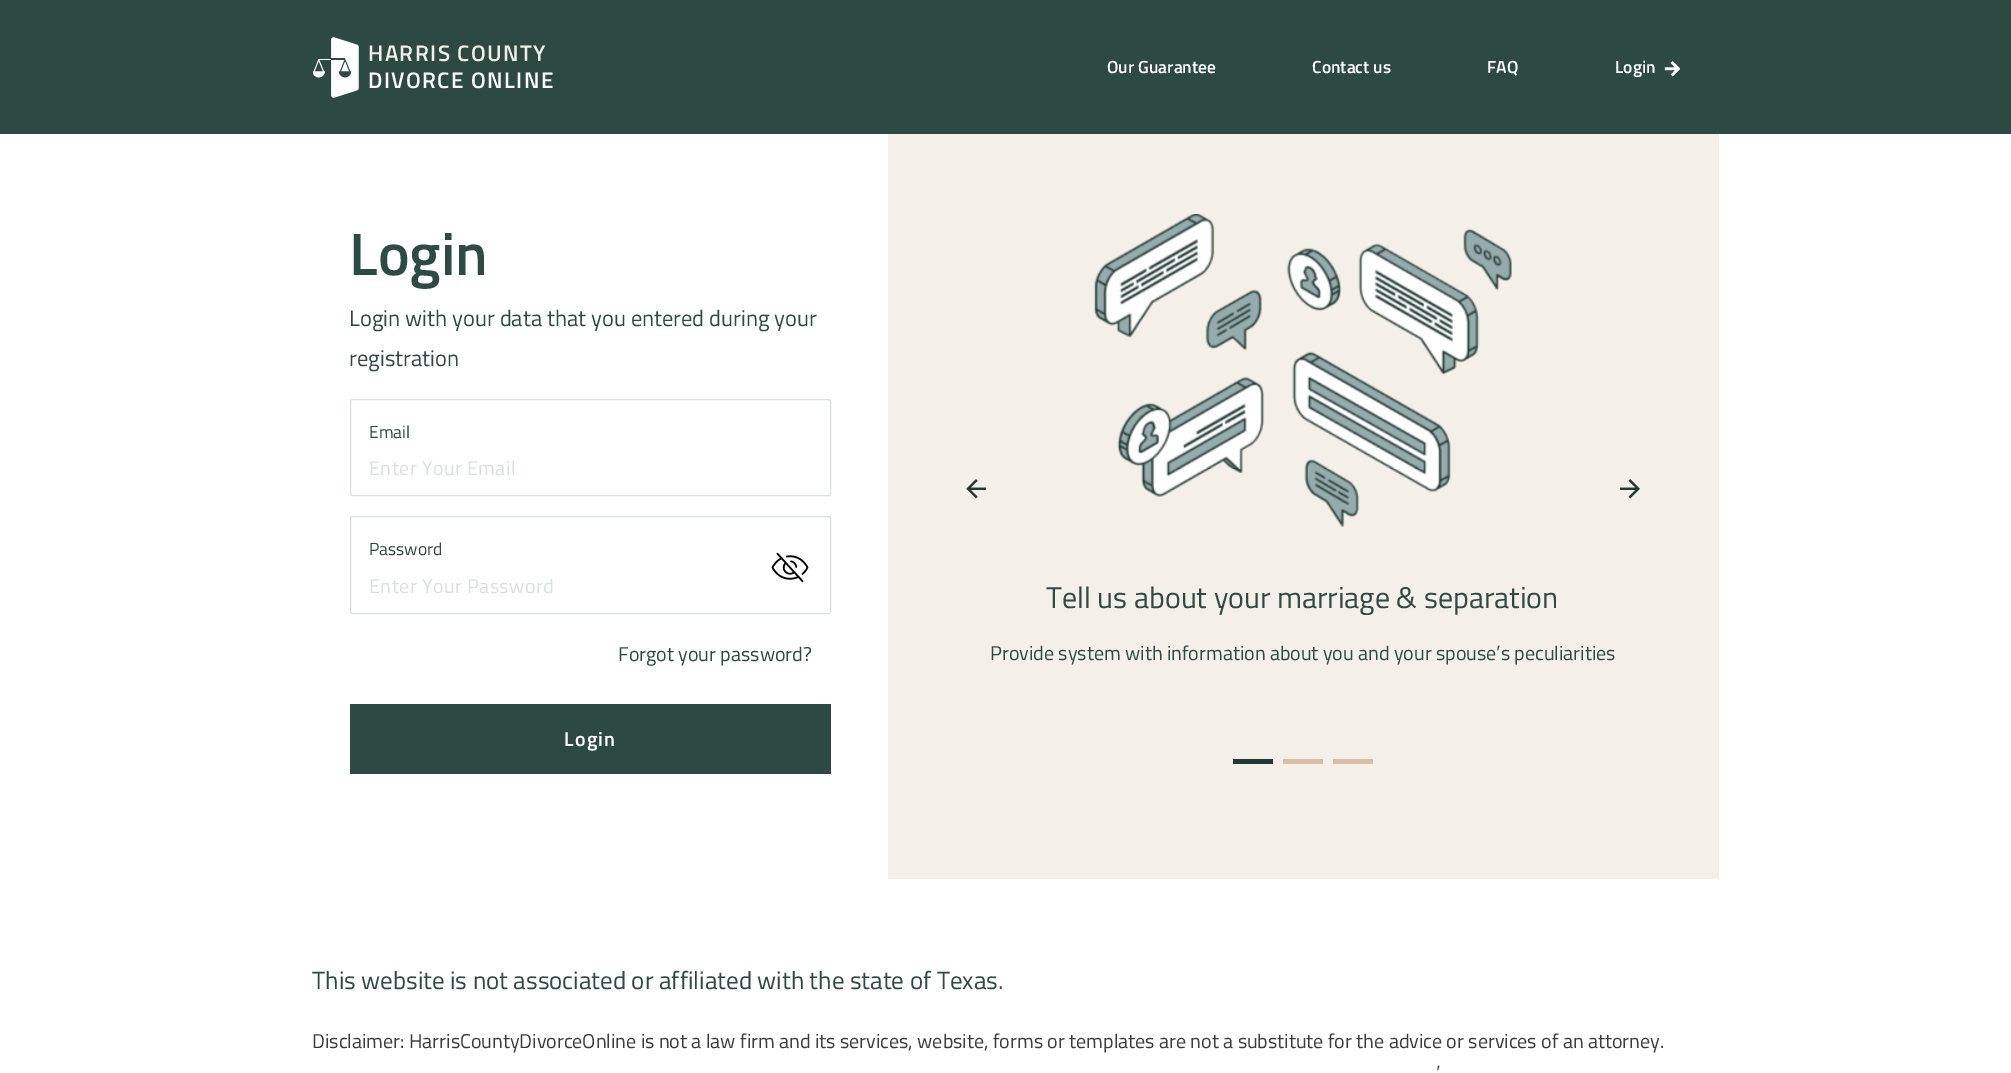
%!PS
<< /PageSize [2011 1073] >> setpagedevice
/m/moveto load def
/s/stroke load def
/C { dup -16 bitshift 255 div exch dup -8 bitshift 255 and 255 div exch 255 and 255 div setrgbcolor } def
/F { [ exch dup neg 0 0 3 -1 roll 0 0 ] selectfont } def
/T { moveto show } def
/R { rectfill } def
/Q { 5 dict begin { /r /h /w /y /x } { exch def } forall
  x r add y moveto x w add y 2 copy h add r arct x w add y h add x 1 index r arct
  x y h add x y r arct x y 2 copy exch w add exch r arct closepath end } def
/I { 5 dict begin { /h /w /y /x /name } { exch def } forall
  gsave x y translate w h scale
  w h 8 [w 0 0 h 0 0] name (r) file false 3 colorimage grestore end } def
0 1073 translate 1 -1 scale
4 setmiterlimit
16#FFFFFF C
0 0 2011 1073 R
16#2D4A42 C
0 0 2011 134 R
(1.rgb) 313 37 46 61 I
/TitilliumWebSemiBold-SemiBold 22.5 F
16#F5EFEA C
368 61 m 1.4 0 (HARRIS COUNTY) ashow
16#FFFFFF C
368 88 m 1.4 0 (DIVORCE ONLINE) ashow
/TitilliumWebSemiBold-SemiBold 17.5 F
(Our Guarantee) 1107 73 T
(Contact us) 1312 73 T
(FAQ) 1487 73 T
(Login) 1615 73 T
(2.rgb) 1664 61 16 16 I
/TitilliumWebSemiBold-SemiBold 60 F
16#2E4B43 C
(Login) 349 275 T
/TitilliumWeb-Regular 22.5 F
(Login with your data that you entered during your) 349 326 T
(registration) 349 366 T
16#D9E1E0 C
350.5 399.5 480 96 2 Q s
/TitilliumWeb-Regular 17.5 F
16#2E4B43 C
(Email) 369 438 T
/TitilliumWeb-Regular 20 F
16#D9E1E0 C
369 475 m .4 0 (Enter Your Email) ashow
350.5 516.5 480 97 2 Q s
/TitilliumWeb-Regular 17.5 F
16#2E4B43 C
(Password) 369 555 T
(3.rgb) 771 552 38 31 I
/TitilliumWeb-Regular 20 F
16#D9E1E0 C
369 593 m .4 0 (Enter Your Password) ashow
16#2E4B43 C
(Forgot your password?) 618 661 T
16#2D4A42 C
350 704 481 70 R
/TitilliumWebSemiBold-SemiBold 20 F
16#FFFFFF C
564 746 m 1.25 0 (Login) ashow
16#F5EFEA C
888 134 831 745 R
(4.rgb) 966 479 20 20 I
(5.rgb) 1620 479 20 20 I
(6.rgb) 1094 214 418 313 I
/TitilliumWeb-Regular 30 F
16#2E4B43 C
(Tell us about your marriage & separation) 1046 608 T
/TitilliumWeb-Regular 20 F
(Provide system with information about you and your spouse’s peculiarities) 990 660 T
16#223933 C
1233 759 40 5 R
16#DABDA5 C
1283 759 40 5 R
1333 759 40 5 R
/TitilliumWeb-Regular 25 F
16#2E4B43 C
(This website is not associated or affiliated with the state of Texas.) 312 989 T
/TitilliumWeb-Regular 20 F
16#3C3C3C C
(Disclaimer: HarrisCountyDivorceOnline is not a law firm and its services, website, forms or templates are not a substitute for the advice or services of an attorney.) 312 1048 T
(’) 1436 1080 T
showpage
